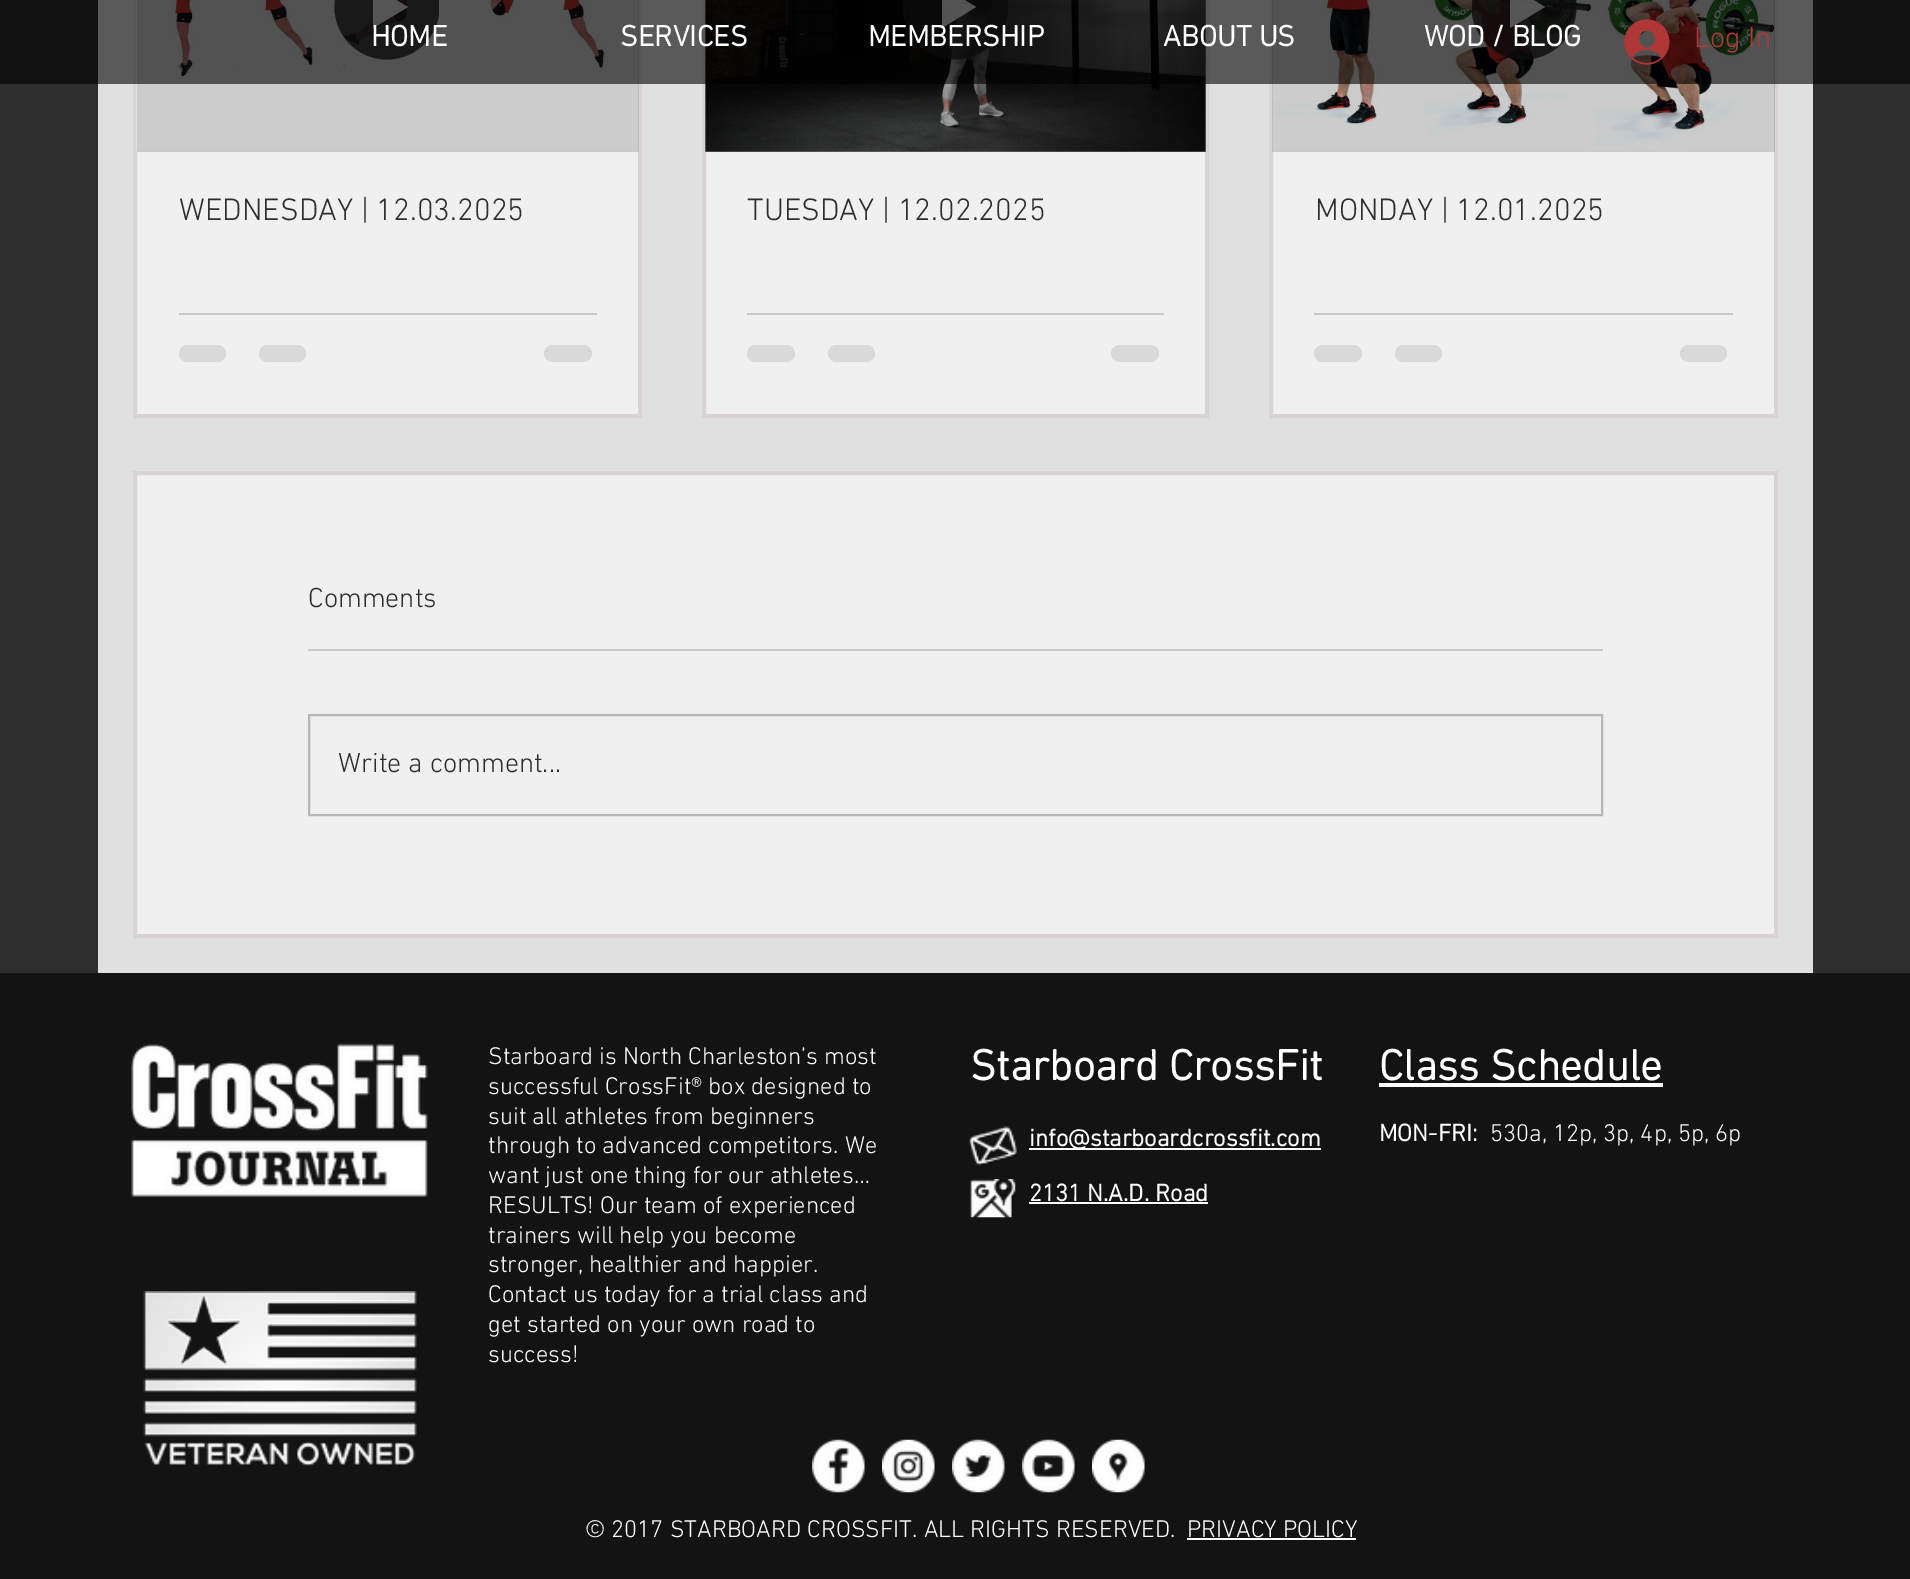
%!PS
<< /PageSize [1910 1579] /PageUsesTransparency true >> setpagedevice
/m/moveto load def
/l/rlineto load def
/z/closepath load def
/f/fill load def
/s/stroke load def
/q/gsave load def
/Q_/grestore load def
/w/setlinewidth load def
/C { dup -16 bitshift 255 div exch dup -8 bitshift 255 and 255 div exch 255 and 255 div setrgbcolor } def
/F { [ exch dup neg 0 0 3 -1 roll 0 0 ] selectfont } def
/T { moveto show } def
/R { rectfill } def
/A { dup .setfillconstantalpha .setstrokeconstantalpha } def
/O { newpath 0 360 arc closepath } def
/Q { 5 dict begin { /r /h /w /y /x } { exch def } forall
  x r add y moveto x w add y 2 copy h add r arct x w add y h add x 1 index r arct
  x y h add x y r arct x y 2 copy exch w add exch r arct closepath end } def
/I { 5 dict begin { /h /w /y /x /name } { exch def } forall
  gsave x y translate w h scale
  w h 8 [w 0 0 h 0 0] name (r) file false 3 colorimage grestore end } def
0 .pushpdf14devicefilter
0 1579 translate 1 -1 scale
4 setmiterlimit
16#2F2E2E C
0 0 1910 1579 R
16#E0E0E0 C
98 0 1715 973 R
16#F0F0F0 C
137 151 501 263 R
16#D9D4D3 C
4 w
135 -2 505 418 rectstroke
(2.rgb) 136 0 503 152 I
0.2 A
16#000000 C
137 0 502 152 R
q
334 0 105 60 rectclip
0.8 A
16#1A1A1A C
387 7 52.5 O f
Q_
0.8 A
16#FFFFFF C
373 -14 m 0 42 l 35 -21 l z f
1 A
16#F0F0F0 C
706 151 499 263 R
16#D9D4D3 C
704 -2 503 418 rectstroke
(3.rgb) 705 0 501 152 I
0.2 A
16#000000 C
705 0 501 152 R
0.8 A
16#1A1A1A C
955.5 7 52.5 O f
16#FFFFFF C
942 -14 m 0 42 l 34 -21 l z f
1 A
16#F0F0F0 C
1273 151 501 263 R
16#D9D4D3 C
1271 -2 505 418 rectstroke
(4.rgb) 1272 0 503 152 I
0.2 A
16#000000 C
1272 0 503 152 R
q
1472 0 105 60 rectclip
0.8 A
16#1A1A1A C
1524 7 52.5 O f
Q_
0.8 A
16#FFFFFF C
1510 -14 m 0 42 l 35 -21 l z f
0.6 A
16#000000 C
0 0 1910 84 R
/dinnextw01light-Bold 29.75 F
1 A
16#FFFFFF C
(HOME) 371 46 T
(SERVICES) 620 46 T
(MEMBERSHIP) 868 46 T
(ABOUT US) 1163 46 T
(WOD / BLOG) 1424 46 T
(1.rgb) 1624 19 46 46 I
/dinnextw01light-Light 29.75 F
16#B03737 C
(Log In) 1694 47 T
/dinnextw01light-Light 31.5 F
16#2F2E2E C
(WEDNESDAY | 12.03.2025) 179 220 T
16#C9C9C9 C
179 313 418 2 R
16#D9D9D9 C
179 345 47 17 8.5 Q f
259 345 47 17 8.5 Q f
544 345 48 17 8.5 Q f
16#2F2E2E C
(TUESDAY | 12.02.2025) 747 220 T
16#C9C9C9 C
747 313 417 2 R
16#D9D9D9 C
747 345 48 17 8.5 Q f
828 345 47 17 8.5 Q f
1111 345 48 17 8.5 Q f
16#2F2E2E C
(MONDAY | 12.01.2025) 1315 220 T
16#C9C9C9 C
1314 313 419 2 R
16#D9D9D9 C
1314 345 48 17 8.5 Q f
1395 345 47 17 8.5 Q f
1680 345 47 17 8.5 Q f
16#F0F0F0 C
135 473 m 1641 0 l 0 463 l -1641 0 l z q f Q_
16#D9D4D3 C
s
/dinnextw01light-Light 28 F
16#2F2E2E C
(Comments) 308 607 T
16#C9C9C9 C
308 649 1295 2 R
16#B6B6B6 C
2 w
309 715 1293 100 rectstroke
16#2F2E2E C
(Write a comment...) 338 772 T
16#131313 C
0 973 1910 606 R
(5.rgb) 131 1043 297 154 I
/dinnextw01light-Light 24.5 F
16#FFFFFF C
(Starboard is North Charleston’s most) 488 1064 T
(successful CrossFit® box designed to) 488 1094 T
(suit all athletes from beginners) 488 1124 T
(through to advanced competitors. We) 488 1153 T
(want just one thing for our athletes…) 488 1183 T
(RESULTS! Our team of experienced) 488 1213 T
(trainers will help you become) 488 1243 T
(stronger, healthier and happier.) 488 1272 T
(Contact us today for a trial class and) 488 1302 T
(get started on your own road to) 488 1332 T
(success!) 488 1362 T
/dinnextw01light-Bold 43.75 F
(Starboard CrossFit) 970 1080 T
(Class Schedule) 1379 1080 T
1379 1083 284 4 R
/dinnextw01light-Bold 24.5 F
(MON-FRI:) 1379 1141 T
/dinnextw01light-Light 24.5 F
(530a, 12p, 3p, 4p, 5p, 6p) 1490 1141 T
(6.rgb) 969 1126 48 40 I
1029 1148 292 2 R
/dinnextw01light-Bold 24.5 F
(info@starboardcrossfit.com) 1029 1146 T
(7.rgb) 969 1179 48 39 I
(2131 N.A.D. Road) 1029 1201 T
1029 1202 179 2 R
(8.rgb) 143 1291 274 175 I
(9.rgb) 812 1439 53 54 I
(10.rgb) 882 1439 53 54 I
(11.rgb) 952 1439 53 54 I
(12.rgb) 1022 1439 53 54 I
(13.rgb) 1092 1439 53 54 I
/dinnextw01light-Light 24.5 F
(© 2017 STARBOARD CROSSFIT. ALL RIGHTS RESERVED.) 585 1537 T
(PRIVACY POLICY) 1187 1537 T
1187 1538 169 2 R
.poppdf14devicefilter showpage
